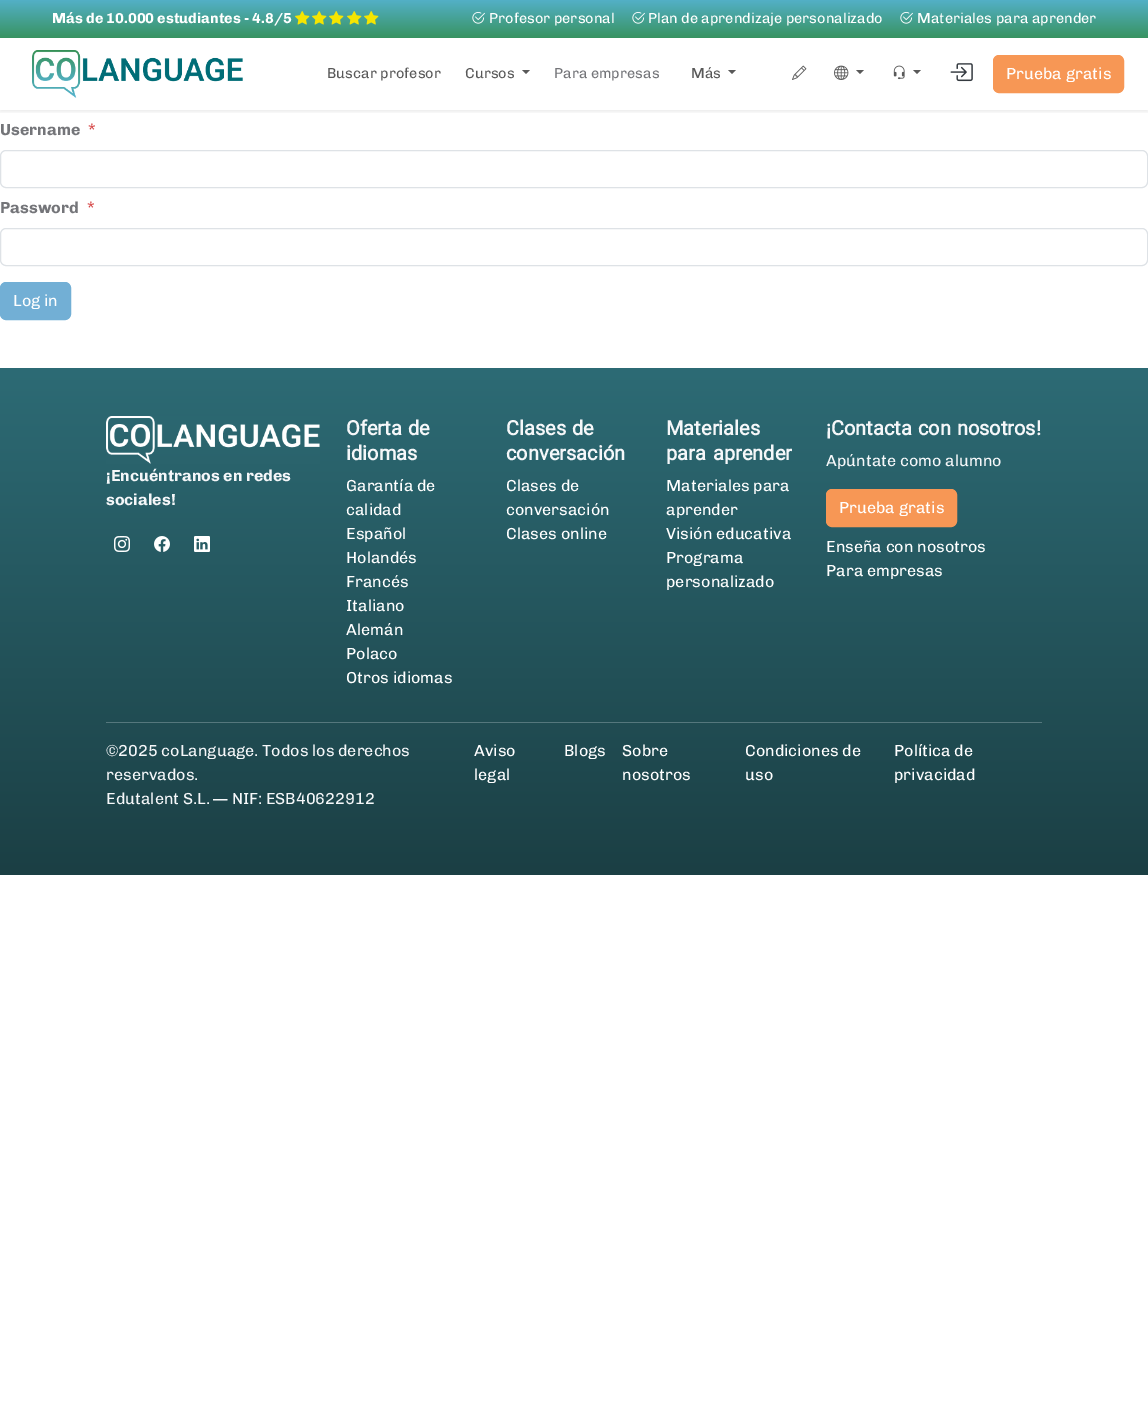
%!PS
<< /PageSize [1148 1414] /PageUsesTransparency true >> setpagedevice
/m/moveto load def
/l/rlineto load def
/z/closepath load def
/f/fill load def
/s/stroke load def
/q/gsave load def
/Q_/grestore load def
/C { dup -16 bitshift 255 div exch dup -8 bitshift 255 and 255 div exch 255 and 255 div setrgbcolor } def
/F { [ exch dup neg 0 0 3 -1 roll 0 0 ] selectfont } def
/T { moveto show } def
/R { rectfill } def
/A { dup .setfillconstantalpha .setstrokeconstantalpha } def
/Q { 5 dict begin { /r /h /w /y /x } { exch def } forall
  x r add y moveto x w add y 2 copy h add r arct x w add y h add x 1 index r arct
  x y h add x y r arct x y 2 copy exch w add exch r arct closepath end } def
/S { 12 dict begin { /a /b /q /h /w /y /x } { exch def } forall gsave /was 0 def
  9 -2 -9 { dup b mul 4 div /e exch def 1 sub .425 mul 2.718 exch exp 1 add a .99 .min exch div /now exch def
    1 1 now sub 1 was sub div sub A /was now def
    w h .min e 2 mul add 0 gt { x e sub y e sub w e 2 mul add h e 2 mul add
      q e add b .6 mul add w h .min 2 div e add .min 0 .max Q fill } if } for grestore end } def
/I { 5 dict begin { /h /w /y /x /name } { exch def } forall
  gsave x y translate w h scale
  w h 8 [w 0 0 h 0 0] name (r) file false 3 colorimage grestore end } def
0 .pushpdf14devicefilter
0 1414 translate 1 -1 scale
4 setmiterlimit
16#FFFFFF C
0 0 1148 1414 R
q 0 0 m 1148 0 l 0 38 l -1148 0 l z clip newpath
<< /ShadingType 2 /ColorSpace /DeviceRGB /Coords [574 0 574 38] /Extend [true true] /Function << /FunctionType 2 /Domain [0 1] /C0 [.325 .69 .78] /C1 [.22 .576 .38] /N 1 >> >> shfill Q_
/Chivo-Bold 14.4 F
(Más de 10.000 estudiantes - 4.8/5) 52 23 T
(1.rgb) 295 11 15 14 I
(1.rgb) 312 11 15 14 I
(1.rgb) 329 11 15 14 I
(1.rgb) 347 11 15 14 I
(1.rgb) 364 11 15 14 I
(2.rgb) 472 12 13 12 I
/Chivo-Regular 14.4 F
(Profesor personal) 489 23 T
(2.rgb) 632 12 13 12 I
(Plan de aprendizaje personalizado) 648 23 T
(2.rgb) 900 12 13 12 I
(Materiales para aprender) 917 23 T
q
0 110 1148 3 rectclip
16#000000 C
0 40 1148 72 0 2 .07 S
Q_
(3.rgb) 32 50 211 48 I
16#595959 C
(Buscar profesor) 327 78 T
(Cursos) 465 78 T
522 70 m 8 0 l -4 4 l z f
16#747579 C
(Para empresas) 554 78 T
16#595959 C
(Más) 691 78 T
728 70 m 8 0 l -4 4 l z f
(4.rgb) 792 65 15 15 I
(5.rgb) 834 65 15 15 I
856 70 m 8 0 l -4 4 l z f
(6.rgb) 893 65 12 15 I
913 70 m 8 0 l -4 4 l z f
(7.rgb) 950 63 23 19 I
16#F79755 C
993.5 55.5 130 37 5.5 Q q f Q_
s
/Chivo-Regular 16 F
16#FFFFFF C
(Prueba gratis) 1006 79 T
/Chivo-Bold 16 F
16#747579 C
(Username) 0 135 T
/Chivo-Regular 16 F
16#D54646 C
(*) 88 135 T
16#DEE2E6 C
.5 150.5 1147 37 5.5 Q s
/Chivo-Bold 16 F
16#747579 C
(Password) 0 213 T
/Chivo-Regular 16 F
16#D54646 C
(*) 87 213 T
16#DEE2E6 C
.5 228.5 1147 37 5.5 Q s
16#72AFD5 C
.5 282.5 70 37 5.5 Q q f Q_
s
16#FFFFFF C
(Log in) 13 306 T
q 0 368 m 1148 0 l 0 507 l -1148 0 l z clip newpath
<< /ShadingType 2 /ColorSpace /DeviceRGB /Coords [574 368 574 875] /Extend [true true] /Function << /FunctionType 2 /Domain [0 1] /C0 [.176 .42 .459] /C1 [.106 .247 .267] /N 1 >> >> shfill Q_
(8.rgb) 106 416 214 48 I
/Chivo-Bold 16 F
16#F5F7F9 C
(¡Encuéntranos en redes) 106 481 T
(sociales!) 106 505 T
(9.rgb) 114 536 16 16 I
(10.rgb) 154 536 16 16 I
(11.rgb) 194 536 16 16 I
/Heebo-Bold 20 F
346 435 m 1 0 32 (Oferta de) widthshow
(idiomas) 346 460 T
/Chivo-Regular 16 F
16#FFFFFF C
(Garantía de) 346 491 T
(calidad) 346 515 T
(Español) 346 539 T
(Holandés) 346 563 T
(Francés) 346 587 T
(Italiano) 346 611 T
(Alemán) 346 635 T
(Polaco) 346 659 T
(Otros idiomas) 346 683 T
/Heebo-Bold 20 F
16#F5F7F9 C
506 435 m 1 0 32 (Clases de) widthshow
(conversación) 506 460 T
/Chivo-Regular 16 F
16#FFFFFF C
(Clases de) 506 491 T
(conversación) 506 515 T
(Clases online) 506 539 T
/Heebo-Bold 20 F
16#F5F7F9 C
(Materiales) 666 435 T
666 460 m 2 0 32 (para aprender) widthshow
/Chivo-Regular 16 F
16#FFFFFF C
(Materiales para) 666 491 T
(aprender) 666 515 T
(Visión educativa) 666 539 T
(Programa) 666 563 T
(personalizado) 666 587 T
/Heebo-Bold 20 F
16#F5F7F9 C
826 435 m 1 0 32 (¡Contacta con nosotros!) widthshow
/Chivo-Regular 16 F
(Apúntate como alumno) 826 466 T
16#F79755 C
826.5 489.5 130 37 5.5 Q q f Q_
s
16#FFFFFF C
(Prueba gratis) 839 513 T
(Enseña con nosotros) 826 552 T
(Para empresas) 826 576 T
16#55777D C
106 722 936 1 R
16#F5F7F9 C
(©2025 coLanguage. Todos los derechos) 106 756 T
(reservados.) 106 780 T
(Edutalent S.L. — NIF: ESB40622912) 106 804 T
16#FFFFFF C
(Aviso) 474 756 T
(legal) 474 780 T
(Blogs) 564 756 T
(Sobre) 622 756 T
(nosotros) 622 780 T
(Condiciones de) 745 756 T
(uso) 745 780 T
(Política de) 894 756 T
(privacidad) 894 780 T
.poppdf14devicefilter showpage
